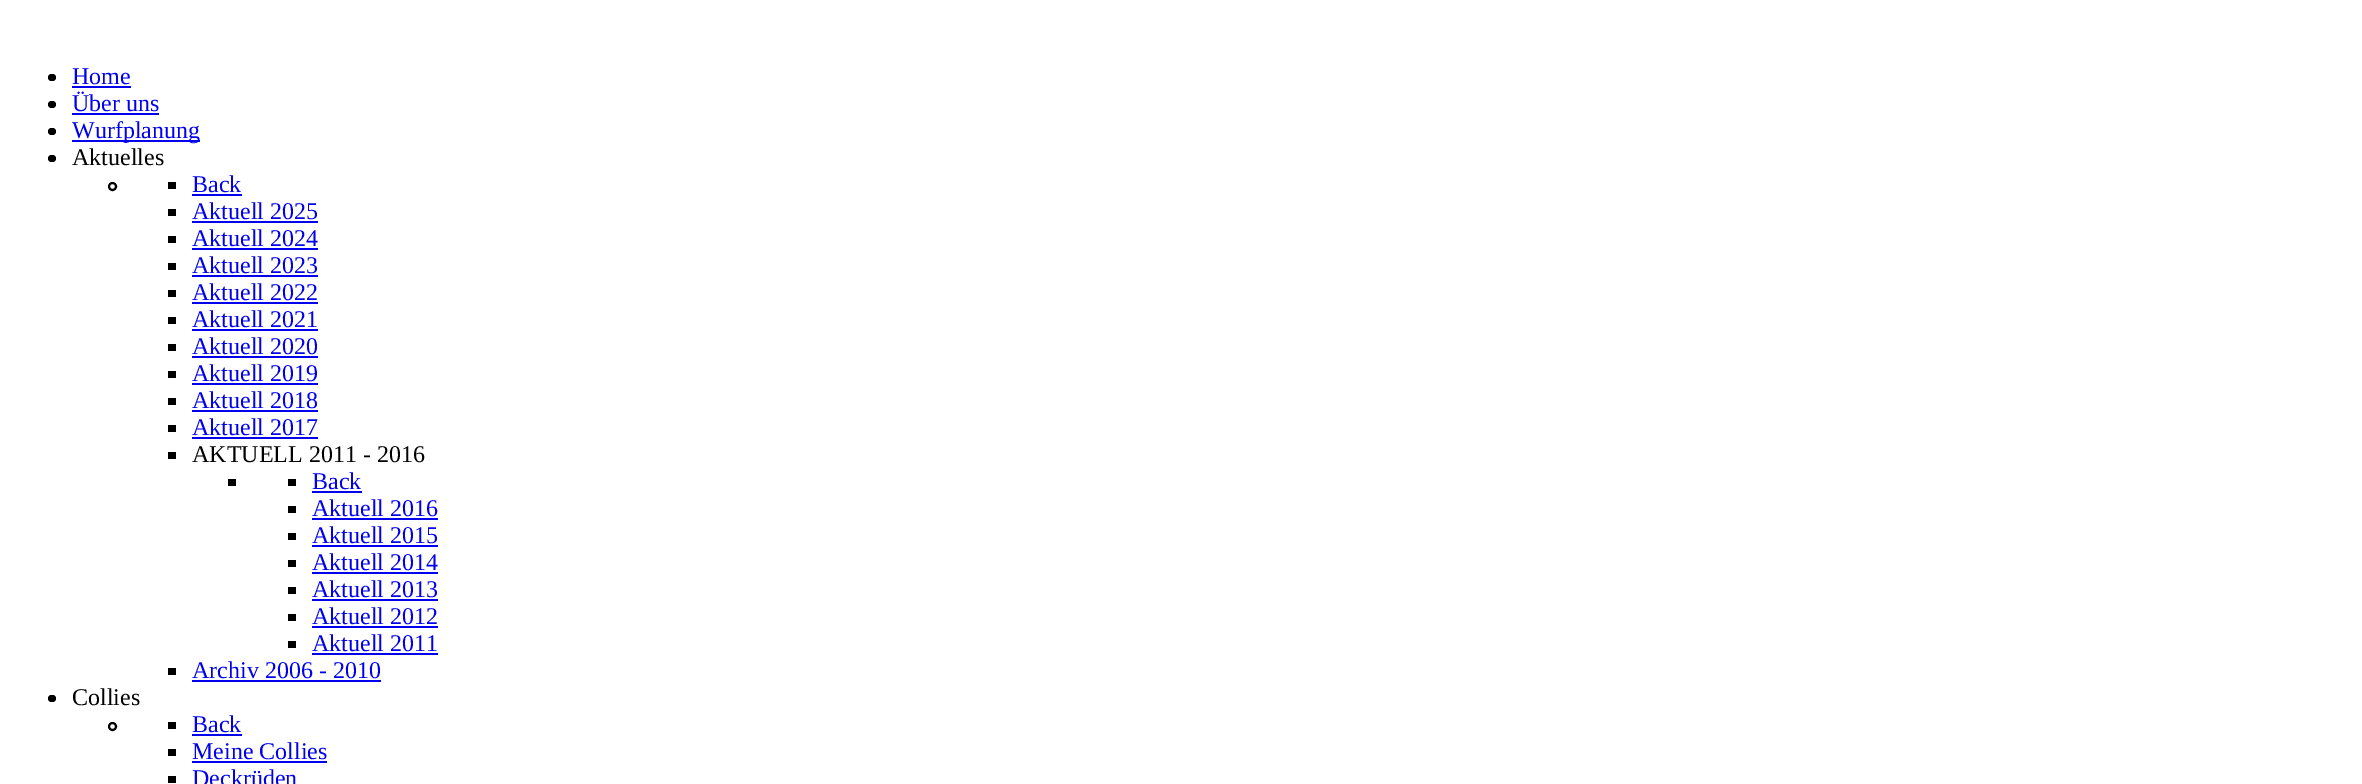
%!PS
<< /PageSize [2362 784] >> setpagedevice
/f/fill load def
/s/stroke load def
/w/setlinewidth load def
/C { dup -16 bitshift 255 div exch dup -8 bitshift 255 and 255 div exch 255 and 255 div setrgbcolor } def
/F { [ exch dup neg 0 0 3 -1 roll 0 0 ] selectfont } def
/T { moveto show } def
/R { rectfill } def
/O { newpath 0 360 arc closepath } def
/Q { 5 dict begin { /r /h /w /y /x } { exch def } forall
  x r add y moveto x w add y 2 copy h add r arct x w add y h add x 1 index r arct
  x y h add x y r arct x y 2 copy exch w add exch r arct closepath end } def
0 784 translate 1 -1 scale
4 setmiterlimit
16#FFFFFF C
0 0 2362 784 R
16#000000 C
48 74 8 7 3.5 Q f
/LiberationSerif-Regular 24 F
16#0000EE C
(Home) 72 84 T
72 86 59 2 R
16#000000 C
48 101 8 7 3.5 Q f
16#0000EE C
(Über uns) 72 111 T
72 113 87 2 R
16#000000 C
48 128 8 7 3.5 Q f
16#0000EE C
72 140 128 2 R
(Wurfplanung) 72 138 T
16#000000 C
48 155 8 7 3.5 Q f
(Aktuelles) 72 165 T
2 w
112.5 186.5 3.5 O s
168 182 8 7 R
16#0000EE C
(Back) 192 192 T
192 194 50 2 R
16#000000 C
168 209 8 7 R
16#0000EE C
(Aktuell 2025) 192 219 T
192 221 126 2 R
16#000000 C
168 236 8 7 R
16#0000EE C
(Aktuell 2024) 192 246 T
192 248 126 2 R
16#000000 C
168 263 8 7 R
16#0000EE C
(Aktuell 2023) 192 273 T
192 275 126 2 R
16#000000 C
168 290 8 7 R
16#0000EE C
(Aktuell 2022) 192 300 T
192 302 126 2 R
16#000000 C
168 317 8 7 R
16#0000EE C
(Aktuell 2021) 192 327 T
192 329 126 2 R
16#000000 C
168 344 8 7 R
16#0000EE C
(Aktuell 2020) 192 354 T
192 356 126 2 R
16#000000 C
168 371 8 7 R
16#0000EE C
(Aktuell 2019) 192 381 T
192 383 126 2 R
16#000000 C
168 398 8 7 R
16#0000EE C
(Aktuell 2018) 192 408 T
192 410 126 2 R
16#000000 C
168 425 8 7 R
16#0000EE C
(Aktuell 2017) 192 435 T
192 437 126 2 R
16#000000 C
168 452 8 7 R
(AKTUELL 2011 - 2016) 192 462 T
228 479 8 7 R
288 479 8 7 R
16#0000EE C
(Back) 312 489 T
312 491 50 2 R
16#000000 C
288 506 8 7 R
16#0000EE C
(Aktuell 2016) 312 516 T
312 518 126 2 R
16#000000 C
288 533 8 7 R
16#0000EE C
(Aktuell 2015) 312 543 T
312 545 126 2 R
16#000000 C
288 560 8 7 R
16#0000EE C
(Aktuell 2014) 312 570 T
312 572 126 2 R
16#000000 C
288 587 8 7 R
16#0000EE C
(Aktuell 2013) 312 597 T
312 599 126 2 R
16#000000 C
288 614 8 7 R
16#0000EE C
(Aktuell 2012) 312 624 T
312 626 126 2 R
16#000000 C
288 641 8 7 R
16#0000EE C
(Aktuell 2011) 312 651 T
312 653 126 2 R
16#000000 C
168 668 8 7 R
16#0000EE C
(Archiv 2006 - 2010) 192 678 T
192 680 189 2 R
16#000000 C
48 695 8 7 3.5 Q f
(Collies) 72 705 T
112.5 726.5 3.5 O s
168 722 8 7 R
16#0000EE C
(Back) 192 732 T
192 734 50 2 R
16#000000 C
168 749 8 7 R
16#0000EE C
(Meine Collies) 192 759 T
192 761 135 2 R
16#000000 C
168 776 8 7 R
16#0000EE C
(Deckrüden) 192 786 T
showpage
